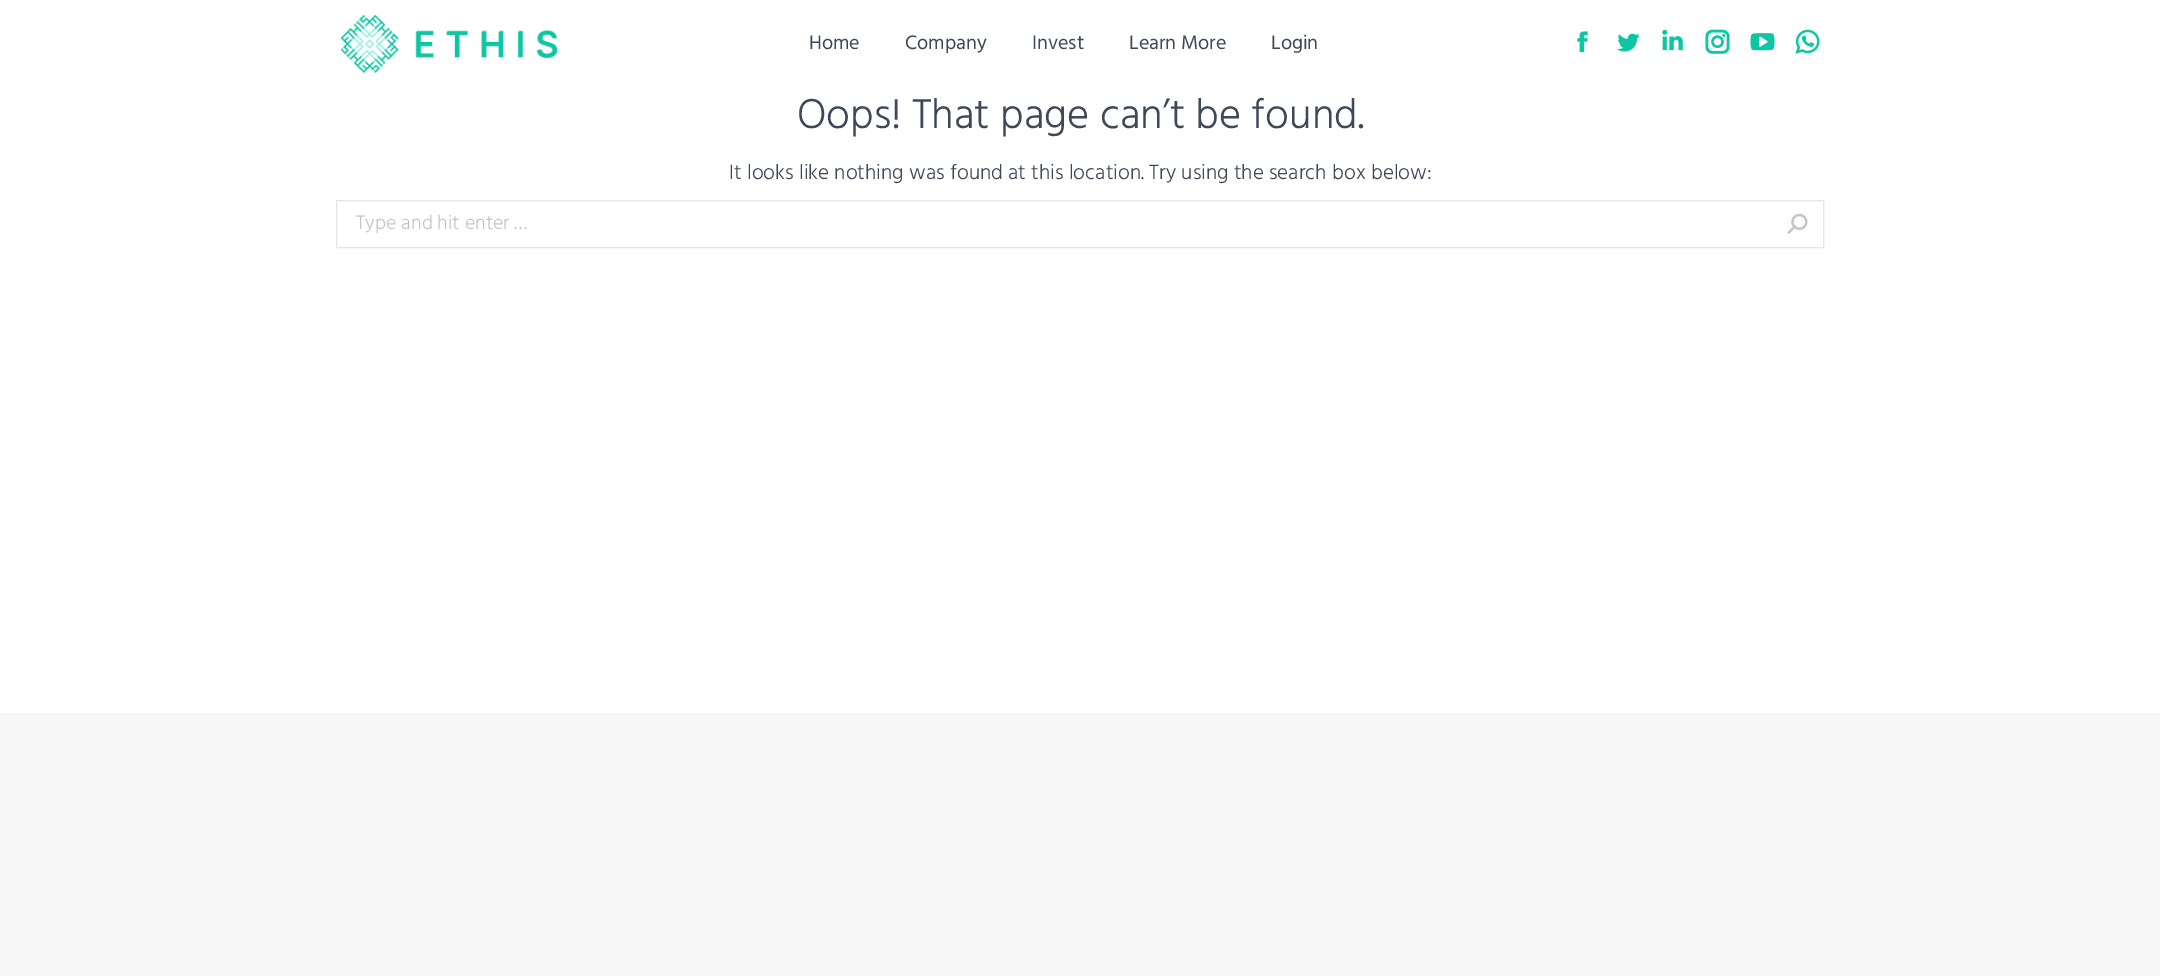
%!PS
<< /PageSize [2160 976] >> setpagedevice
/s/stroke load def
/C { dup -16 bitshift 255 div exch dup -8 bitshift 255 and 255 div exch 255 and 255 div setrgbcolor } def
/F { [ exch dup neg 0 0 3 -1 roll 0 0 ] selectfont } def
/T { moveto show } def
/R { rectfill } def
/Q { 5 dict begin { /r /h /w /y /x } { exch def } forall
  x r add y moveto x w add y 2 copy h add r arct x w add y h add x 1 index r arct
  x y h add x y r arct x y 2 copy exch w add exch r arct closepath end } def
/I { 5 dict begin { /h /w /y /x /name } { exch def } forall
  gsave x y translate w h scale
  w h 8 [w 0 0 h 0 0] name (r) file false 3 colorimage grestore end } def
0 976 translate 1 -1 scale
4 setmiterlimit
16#F7F7F7 C
0 0 2160 976 R
16#FFFFFF C
0 0 2160 713 R
(1.rgb) 340 14 218 60 I
/Hind-Regular 20 F
16#3D4859 C
(Home) 809 49 T
(Company) 905 49 T
(Invest) 1032 49 T
(Learn More) 1129 49 T
(Login) 1271 49 T
(2.rgb) 1577 31 11 21 I
(3.rgb) 1617 33 23 19 I
(4.rgb) 1662 29 21 22 I
(5.rgb) 1705 29 25 25 I
(6.rgb) 1750 33 25 18 I
(7.rgb) 1795 29 25 25 I
/Hind-Light 42.5 F
(Oops! That page can’t be found.) 797 128 T
/Hind-Light 21.25 F
(It looks like nothing was found at this location. Try using the search box below:) 729 179 T
16#E5E5E5 C
336.5 200.5 1487 47 .5 Q s
/Hind-Light 20 F
16#C4C5C9 C
(Type and hit enter …) 356 229 T
(8.rgb) 1787 213 21 21 I
showpage
